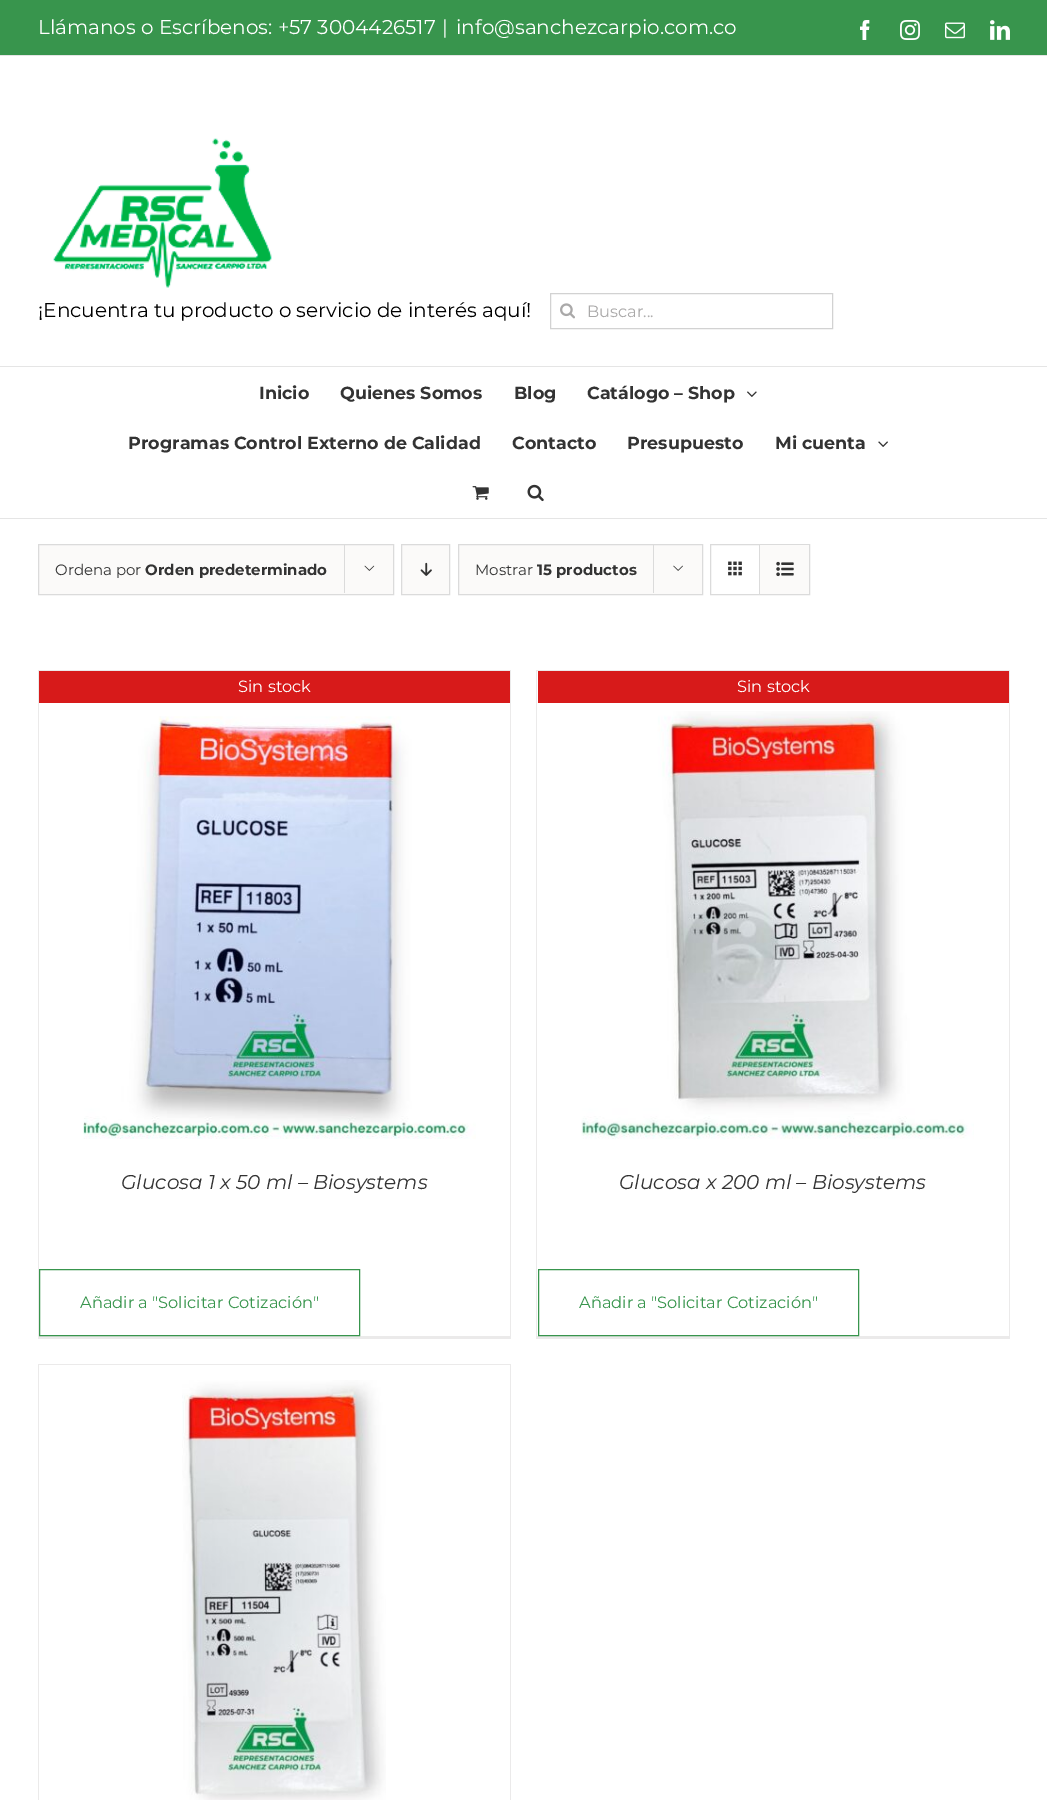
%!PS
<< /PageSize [1047 1800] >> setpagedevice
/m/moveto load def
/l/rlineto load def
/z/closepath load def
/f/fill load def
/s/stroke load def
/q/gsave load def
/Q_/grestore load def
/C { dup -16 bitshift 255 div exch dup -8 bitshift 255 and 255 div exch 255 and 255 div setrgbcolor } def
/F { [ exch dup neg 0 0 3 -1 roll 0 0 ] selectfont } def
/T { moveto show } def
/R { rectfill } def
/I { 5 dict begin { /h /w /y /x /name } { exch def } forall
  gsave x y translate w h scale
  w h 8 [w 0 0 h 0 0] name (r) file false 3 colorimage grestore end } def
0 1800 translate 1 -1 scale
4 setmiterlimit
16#FFFFFF C
0 0 1047 1800 R
16#38954D C
0 0 1047 55 R
16#E5E5E5 C
0 55 1047 1 R
/Montserrat-Regular 20 F
16#FFFFFF C
(Llámanos o Escríbenos: +57 3004426517) 38 34 T
(|) 442 34 T
(info@sanchezcarpio.com.co) 456 34 T
(1.rgb) 860 20 10 20 I
(2.rgb) 900 20 20 20 I
(3.rgb) 945 22 20 17 I
(4.rgb) 990 20 20 20 I
16#E5E5E5 C
0 366 1047 1 R
(5.rgb) 53 138 219 150 I
16#000000 C
(¡Encuentra tu producto o servicio de interés aquí!) 38 317 T
16#D2D2D2 C
550.5 293.5 282 35 rectstroke
(6.rgb) 560 303 15 16 I
/Montserrat-Regular 16.25 F
16#AAA9A9 C
(Buscar...) 587 317 T
16#E5E5E5 C
0 518 1047 1 R
/Montserrat-Bold 17.5 F
16#333333 C
(Inicio) 259 399 T
(Quienes Somos) 340 399 T
(Blog) 514 399 T
(Catálogo – Shop) 587 399 T
(7.rgb) 747 391 10 6 I
(Programas Control Externo de Calidad) 128 449 T
(Contacto) 512 449 T
(Presupuesto) 627 449 T
(Mi cuenta) 775 449 T
(8.rgb) 878 441 10 6 I
(9.rgb) 472 486 17 14 I
(10.rgb) 527 484 17 18 I
16#FBFAF9 C
38.5 544.5 m 355 0 l 0 50 l -355 0 l z q f Q_
16#DBDBDB C
s
/Montserrat-Regular 15 F
16#333333 C
(Ordena por) 55 575 T
/Montserrat-Bold 15 F
(Orden predeterminado) 145 575 T
16#DBDBDB C
344 544 1 49 R
(11.rgb) 364 565 11 6 I
16#FBFAF9 C
401.5 544.5 m 48 0 l 0 50 l -48 0 l z q f Q_
16#DBDBDB C
s
(12.rgb) 420 562 12 14 I
16#FBFAF9 C
458.5 544.5 m 244 0 l 0 50 l -244 0 l z q f Q_
16#DBDBDB C
s
/Montserrat-Regular 15 F
16#333333 C
(Mostrar) 475 575 T
/Montserrat-Bold 15 F
(15 productos) 537 575 T
16#DBDBDB C
653 544 1 49 R
(13.rgb) 673 565 10 6 I
710.5 544.5 99 50 rectstroke
759 545 1 49 R
(14.rgb) 728 561 14 15 I
16#FBFAF9 C
760 545 49 49 R
(15.rgb) 776 561 18 16 I
16#EBEAEA C
38 670 473 1 R
510 670 1 669 R
38 1336 473 3 R
38 670 1 669 R
16#D71A1A C
39 671 471 32 R
/Montserrat-Regular 16.25 F
16#FFFFFF C
(Sin stock) 238 692 T
(16.rgb) 83 716 393 423 I
/Montserrat-Italic 20 F
16#333333 C
(Glucosa 1 x 50 ml – Biosystems) 121 1189 T
16#38954D C
39.5 1269.5 320 66 rectstroke
/Montserrat-Regular 16.25 F
(Añadir a "Solicitar Cotización") 80 1308 T
16#EBEAEA C
536 670 474 1 R
1009 670 1 669 R
536 1336 474 3 R
536 670 1 669 R
16#D71A1A C
538 671 471 32 R
16#FFFFFF C
(Sin stock) 737 692 T
(17.rgb) 581 711 393 429 I
/Montserrat-Italic 20 F
16#333333 C
(Glucosa x 200 ml – Biosystems) 619 1189 T
16#38954D C
538.5 1269.5 320 66 rectstroke
/Montserrat-Regular 16.25 F
(Añadir a "Solicitar Cotización") 579 1308 T
16#EBEAEA C
38 1364 473 1 R
510 1364 1 436 R
38 1364 1 436 R
(18.rgb) 182 1380 204 420 I
showpage
